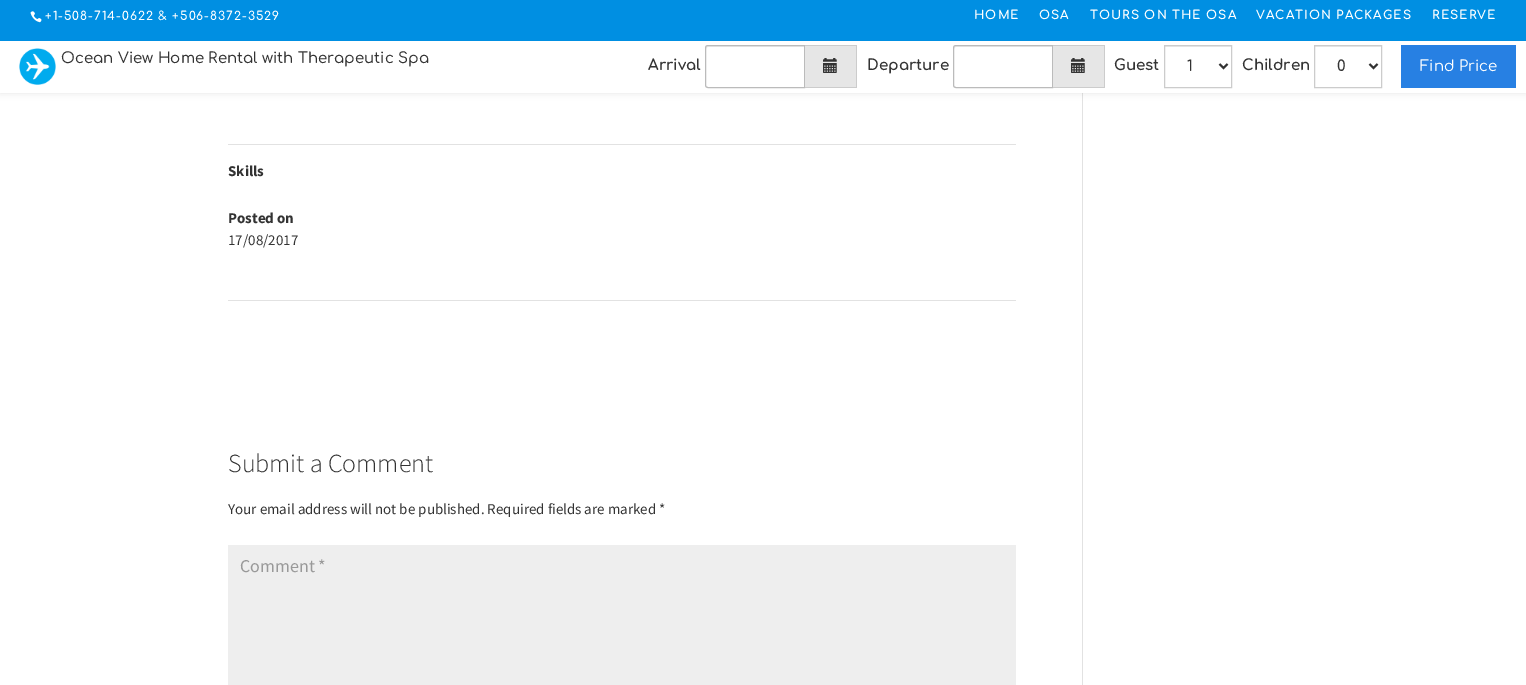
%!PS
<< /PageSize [1526 685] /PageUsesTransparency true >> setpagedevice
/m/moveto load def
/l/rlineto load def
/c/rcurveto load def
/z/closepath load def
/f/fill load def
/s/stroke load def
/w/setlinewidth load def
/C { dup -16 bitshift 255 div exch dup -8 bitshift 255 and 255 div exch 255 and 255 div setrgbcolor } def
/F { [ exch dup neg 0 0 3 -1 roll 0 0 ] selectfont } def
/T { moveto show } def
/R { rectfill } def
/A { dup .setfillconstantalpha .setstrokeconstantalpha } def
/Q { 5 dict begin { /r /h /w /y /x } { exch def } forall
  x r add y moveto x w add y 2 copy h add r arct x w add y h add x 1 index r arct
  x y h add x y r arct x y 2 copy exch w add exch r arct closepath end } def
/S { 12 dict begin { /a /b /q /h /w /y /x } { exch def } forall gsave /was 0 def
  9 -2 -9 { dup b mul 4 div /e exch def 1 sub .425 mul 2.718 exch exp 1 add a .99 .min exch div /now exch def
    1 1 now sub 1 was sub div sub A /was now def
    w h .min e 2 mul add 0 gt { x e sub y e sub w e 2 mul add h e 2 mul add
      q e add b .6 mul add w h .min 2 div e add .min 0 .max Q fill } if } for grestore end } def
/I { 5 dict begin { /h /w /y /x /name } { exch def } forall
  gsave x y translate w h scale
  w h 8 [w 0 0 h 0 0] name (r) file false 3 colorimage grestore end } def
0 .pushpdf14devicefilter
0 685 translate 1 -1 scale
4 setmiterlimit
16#FFFFFF C
0 0 1526 685 R
16#E2E2E2 C
1082 93 1 592 R
16#000000 C
0 41 1526 52 0 3.5 .1 S
16#008FE2 C
0 0 1526 41 R
(1.rgb) 30 11 12 12 I
/Comfortaa-SemiBold 12 F
16#FFFFFF C
45 20 m 1 0 (+1-508-714-0622 & +506-8372-3529) ashow
/Comfortaa-Bold 12 F
974 19 m 1 0 (HOME) ashow
1039 19 m 1 0 (OSA) ashow
1090 19 m 1 0 (TOURS ON THE OSA) ashow
1256 19 m 1 0 (VACATION PACKAGES) ashow
1432 19 m 1 0 (RESERVE) ashow
0 41 1526 52 R
(2.rgb) 19 48 37 37 I
/Comfortaa-Medium 15 F
16#333333 C
(Ocean View Home Rental with Therapeutic Spa) 61 63 T
/Comfortaa-Bold 15 F
(Arrival) 648 70 T
16#ECECEC C
708 47 m 96 0 l 0 -1 l -96 0 l -1 0 -2 1 -2 2 c 0 1 l 0 -1 1 -2 2 -2 c z f
16#BBBBBB C
708 45.5 m 96.5 0 l 0 42 l -96.5 0 l -1.5 0 -2.5 -1 -2.5 -2.5 c 0 -37 l 0 -1.5 1 -2.5 2.5 -2.5 c z s
16#E6E6E6 C
805 46 51 41 R
16#CCCCCC C
805 45 52 1 R
856 45 1 43 R
805 87 52 1 R
(3.rgb) 823 58 14 15 I
16#333333 C
(Departure) 867 70 T
16#ECECEC C
956 47 m 96 0 l 0 -1 l -96 0 l -1 0 -2 1 -2 2 c 0 1 l 0 -1 1 -2 2 -2 c z f
16#BBBBBB C
956 45.5 m 96.5 0 l 0 42 l -96.5 0 l -1.5 0 -2.5 -1 -2.5 -2.5 c 0 -37 l 0 -1.5 1 -2.5 2.5 -2.5 c z s
16#E6E6E6 C
1053 46 51 41 R
16#CCCCCC C
1053 45 52 1 R
1104 45 1 43 R
1053 87 52 1 R
(3.rgb) 1071 58 14 15 I
16#333333 C
(Guest) 1114 70 T
16#ECECEC C
1165 46 66 1 R
16#CCCCCC C
1164.5 45.5 67 42 rectstroke
16#333333 C
2 w
1219.5 64 m 4 4 l 4 -4 l s
/Comfortaa-SemiBold 15 F
(1) 1187 71 T
/Comfortaa-Bold 15 F
(Children) 1242 70 T
16#ECECEC C
1315 46 66 1 R
16#CCCCCC C
1 w
1314.5 45.5 67 42 rectstroke
16#333333 C
2 w
1369.5 64 m 4 4 l 4 -4 l s
/Comfortaa-SemiBold 15 F
(0) 1337 71 T
16#2780E3 C
1401 45 115 43 R
/Comfortaa-Regular 15 F
16#FFFFFF C
(Find Price) 1420 71 T
16#E2E2E2 C
228 144 788 1 R
228 300 788 1 R
/SourceSansPro-Bold 15 F
16#333333 C
(Skills) 228 176 T
(Posted on) 228 223 T
/SourceSansPro-Regular 15 F
(17/08/2017) 228 245 T
/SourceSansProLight-Light 26 F
(Submit a Comment) 228 472 T
/SourceSansPro-Regular 15 F
(Your email address will not be published. Required fields are marked *) 228 514 T
16#EEEEEE C
228 545 788 140 R
/SourceSansPro-Regular 18 F
16#999999 C
(Comment *) 240 572 T
.poppdf14devicefilter showpage
